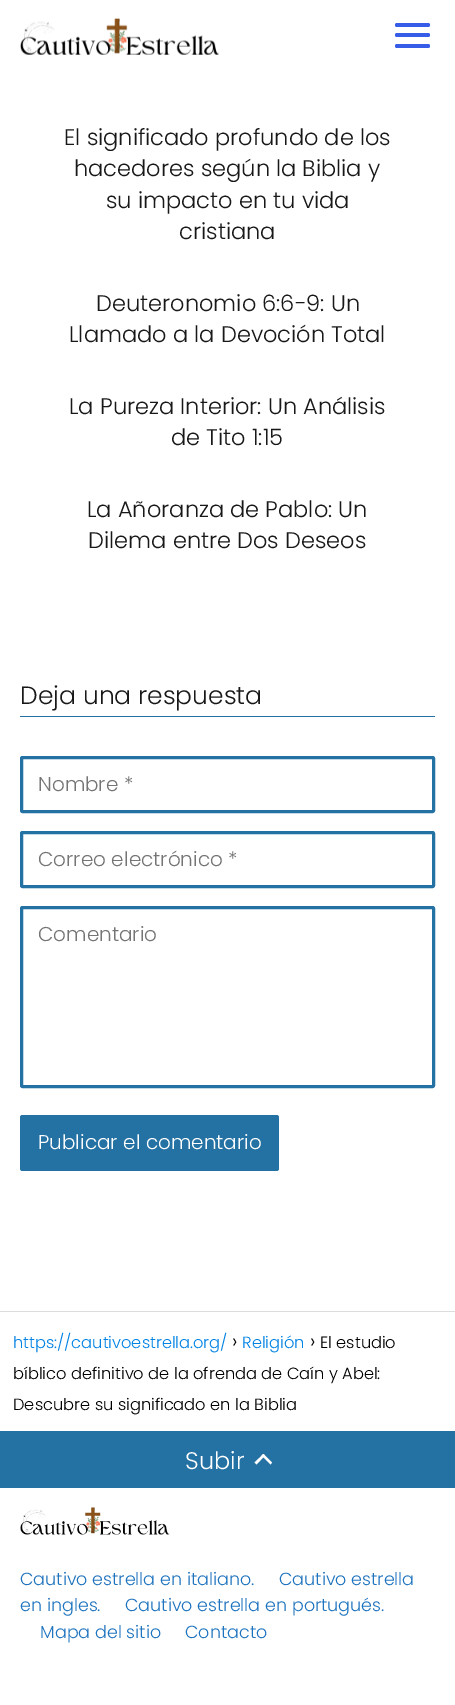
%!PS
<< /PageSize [455 1705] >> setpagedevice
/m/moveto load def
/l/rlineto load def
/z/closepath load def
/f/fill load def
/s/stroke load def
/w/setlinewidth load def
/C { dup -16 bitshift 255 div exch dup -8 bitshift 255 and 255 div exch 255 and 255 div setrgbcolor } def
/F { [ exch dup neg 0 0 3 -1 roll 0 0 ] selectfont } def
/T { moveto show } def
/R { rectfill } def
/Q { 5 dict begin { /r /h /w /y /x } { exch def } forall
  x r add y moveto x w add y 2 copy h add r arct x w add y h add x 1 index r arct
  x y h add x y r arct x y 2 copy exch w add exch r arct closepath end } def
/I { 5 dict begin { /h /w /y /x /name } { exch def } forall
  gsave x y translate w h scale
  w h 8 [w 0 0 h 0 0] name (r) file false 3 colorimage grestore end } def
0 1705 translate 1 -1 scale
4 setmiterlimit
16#FFFFFF C
0 0 455 1705 R
(1.rgb) 20 18 199 37 I
16#375DE8 C
395 23 35 4 2 Q f
395 33 35 4 2 Q f
395 44 35 4 2 Q f
/Poppins-Light 22.5 F
16#181818 C
(El significado profundo de los) 64 145 T
(hacedores según la Biblia y) 74 176 T
(su impacto en tu vida) 106 208 T
(cristiana) 179 239 T
(Deuteronomio 6:6-9: Un) 96 311 T
(Llamado a la Devoción Total) 69 342 T
(La Pureza Interior: Un Análisis) 69 414 T
(de Tito 1:15) 171 445 T
(La Añoranza de Pablo: Un) 87 517 T
(Dilema entre Dos Deseos) 88 548 T
16#2471A3 C
20 716 415 1 R
/Poppins-Light 25 F
16#181818 C
(Deja una respuesta) 20 704 T
16#2471A3 C
3 w
21.5 757.5 412 54 1 Q s
/Poppins-Light 20 F
16#757575 C
(Nombre *) 38 791 T
16#2471A3 C
21.5 832.5 412 54 1 Q s
16#757575 C
(Correo electrónico *) 38 866 T
16#2471A3 C
21.5 907.5 412 179 1 Q s
16#757575 C
(Comentario) 38 941 T
16#2471A3 C
20 1115 259 56 2.5 Q f
16#FFFFFF C
(Publicar el comentario) 38 1149 T
16#DDDDDD C
0 1311 455 1 R
/Poppins-Light 16.25 F
16#0183E4 C
(https://cautivoestrella.org/) 13 1348 T
/Poppins-Light 20 F
16#000000 C
(›) 232 1348 T
/Poppins-Light 16.25 F
16#0183E4 C
(Religión) 242 1348 T
/Poppins-Light 20 F
16#000000 C
(›) 310 1348 T
/Poppins-Light 16.25 F
(El estudio) 320 1348 T
(bíblico definitivo de la ofrenda de Caín y Abel:) 13 1379 T
(Descubre su significado en la Biblia) 13 1410 T
16#2471A3 C
0 1431 455 57 R
/Poppins-Light 24 F
16#FFFFFF C
(Subir) 185 1469 T
256.5 1464.5 m -2 -2 l 9 -8.5 l 1.5 1.5 l z f
270.5 1464.5 m -9 -9 l 2 -1.5 l 8.5 8.5 l z f
(2.rgb) 20 1507 150 28 I
/Poppins-Light 17.5 F
16#1E73BE C
(Cautivo estrella en italiano.) 20 1585 T
(Cautivo estrella) 279 1585 T
(en ingles.) 20 1611 T
(Cautivo estrella en portugués.) 125 1611 T
(Mapa del sitio) 40 1638 T
(Contacto) 185 1638 T
showpage
